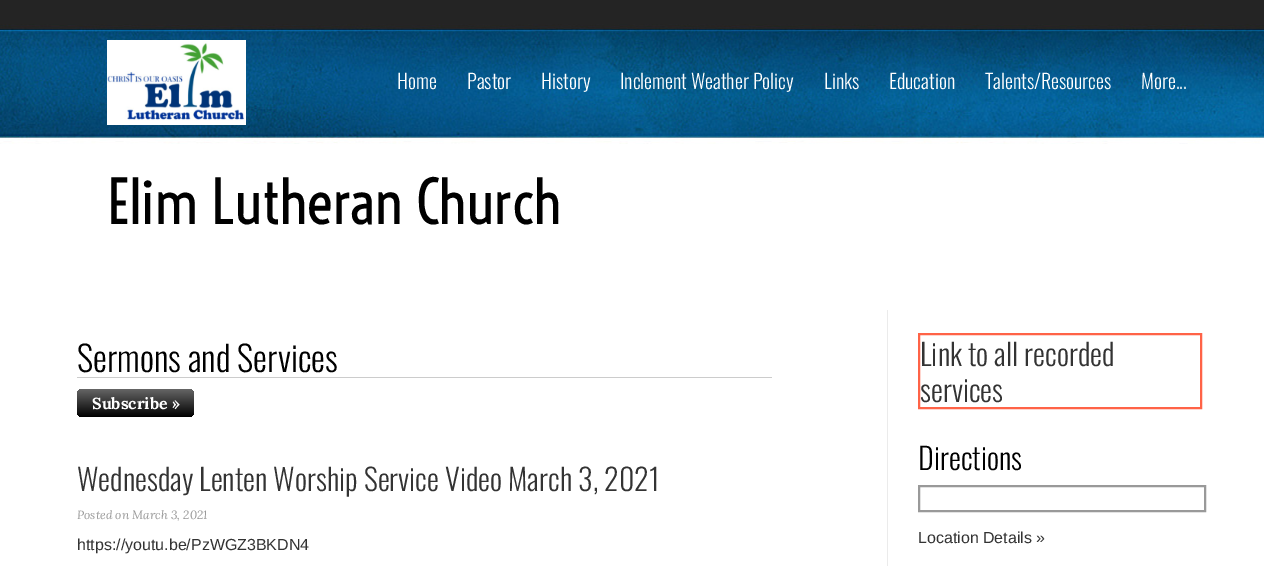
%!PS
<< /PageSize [1264 566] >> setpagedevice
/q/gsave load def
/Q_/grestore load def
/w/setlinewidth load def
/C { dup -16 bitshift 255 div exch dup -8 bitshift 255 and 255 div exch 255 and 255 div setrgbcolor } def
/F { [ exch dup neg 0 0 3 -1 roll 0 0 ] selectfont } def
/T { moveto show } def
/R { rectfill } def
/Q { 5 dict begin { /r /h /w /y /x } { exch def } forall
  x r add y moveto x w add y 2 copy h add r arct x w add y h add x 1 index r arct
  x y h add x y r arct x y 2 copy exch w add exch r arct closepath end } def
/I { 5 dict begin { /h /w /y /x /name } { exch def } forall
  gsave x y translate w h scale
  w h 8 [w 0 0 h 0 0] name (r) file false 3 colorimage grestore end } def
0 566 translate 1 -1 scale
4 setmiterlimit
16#FFFFFF C
0 0 1264 566 R
(1.rgb) 0 0 1264 144 I
/Oswald-Light 20 F
(Home) 397 89 T
(Pastor) 467 89 T
(History) 541 89 T
(Inclement Weather Policy) 620 89 T
(Links) 824 89 T
(Education) 889 89 T
(Talents/Resources) 985 89 T
(More...) 1141 89 T
(2.rgb) 107 40 139 85 I
/Voltaire-Regular 60 F
16#000000 C
(Elim Lutheran Church) 107 224 T
16#CCCCCC C
77 377 695 1 R
/Oswald-Light 35 F
16#000000 C
(Sermons and Services) 77 372 T
q 77 389 117 28 5 Q clip newpath
<< /ShadingType 2 /ColorSpace /DeviceRGB /Coords [136 389 136 417] /Extend [true true] /Function << /FunctionType 2 /Domain [0 1] /C0 [.4 .4 .4] /C1 [0 0 0] /N 1 >> >> shfill Q_
/Lora-Bold 16 F
16#FFFFFF C
(Subscribe ») 92 409 T
/Oswald-Light 30 F
16#333333 C
(Wednesday Lenten Worship Service Video March 3, 2021) 77 491 T
/Lora-Italic 12 F
16#999999 C
(Posted on March 3, 2021) 77 519 T
/LiberationSans-Regular 16 F
16#333333 C
(https://youtu.be/PzWGZ3BKDN4) 77 550 T
16#EBEBEB C
887 310 1 256 R
16#FF6347 C
2 w
919 334 282 74 rectstroke
/Oswald-Light 30 F
16#333333 C
(Link to all recorded) 920 366 T
(services) 920 402 T
16#000000 C
(Directions) 918 470 T
16#999999 C
919 486 286 25 rectstroke
/LiberationSans-Regular 16 F
16#333333 C
(Location Details ») 918 543 T
showpage
